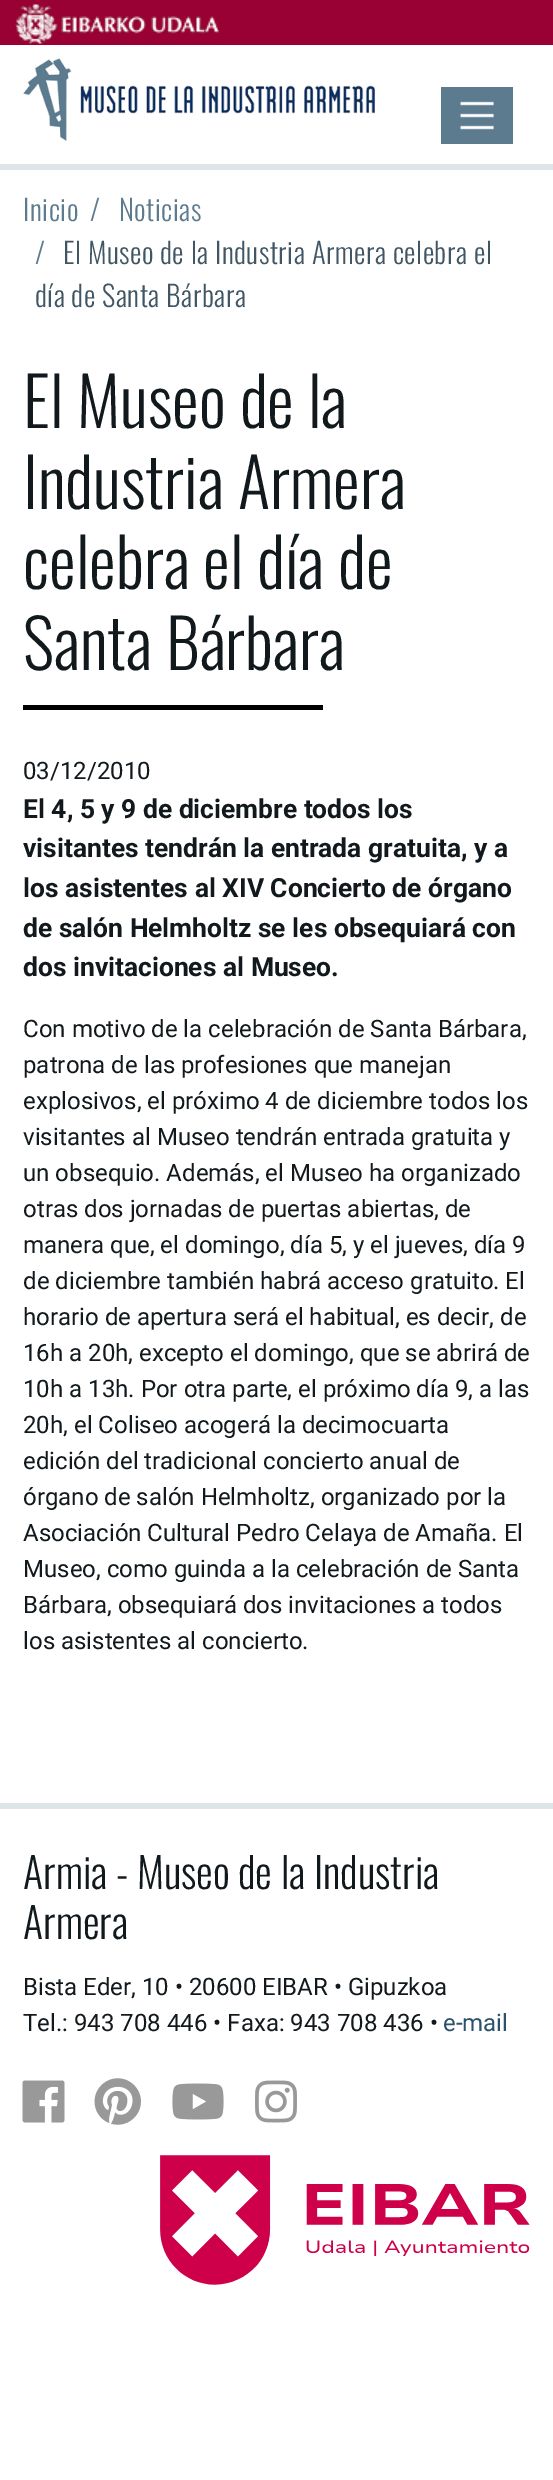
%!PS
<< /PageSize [553 2480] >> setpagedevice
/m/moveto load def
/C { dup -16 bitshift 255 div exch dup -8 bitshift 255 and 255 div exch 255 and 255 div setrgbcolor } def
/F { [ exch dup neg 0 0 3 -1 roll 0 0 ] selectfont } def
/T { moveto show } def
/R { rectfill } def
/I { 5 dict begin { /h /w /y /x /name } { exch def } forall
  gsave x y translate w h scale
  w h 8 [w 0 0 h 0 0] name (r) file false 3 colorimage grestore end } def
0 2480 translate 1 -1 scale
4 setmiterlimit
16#FFFFFF C
0 0 553 2480 R
16#DEE5E9 C
0 164 553 6 R
16#990033 C
0 0 553 45 R
(1.rgb) 15 4 204 40 I
(2.rgb) 23 58 352 83 I
(3.rgb) 441 87 72 57 I
/Oswald-Light 28.75 F
16#5C7B8F C
23 221 m .5 0 (Inicio) ashow
90 221 m .5 0 (/) ashow
119 221 m .5 0 (Noticias) ashow
35 264 m .5 0 (/) ashow
16#405664 C
63 264 m .5 0 (El Museo de la Industria Armera celebra el) ashow
35 307 m .5 0 (día de Santa Bárbara) ashow
/Oswald-Light 67.25 F
16#12191D C
(El Museo de la) 23 428 T
(Industria Armera) 23 509 T
(celebra el día de) 23 589 T
(Santa Bárbara) 23 670 T
16#000000 C
23 705 300 5 R
/Roboto-Regular 24 F
16#12191D C
(03/12/2010) 23 779 T
/Roboto-Bold 26.4 F
(El 4, 5 y 9 de diciembre todos los) 23 818 T
(visitantes tendrán la entrada gratuita, y a) 23 857 T
(los asistentes al XIV Concierto de órgano) 23 897 T
(de salón Helmholtz se les obsequiará con) 23 937 T
(dos invitaciones al Museo.) 23 976 T
/Roboto-Regular 24 F
(Con motivo de la celebración de Santa Bárbara,) 23 1037 T
(patrona de las profesiones que manejan) 23 1073 T
(explosivos, el próximo 4 de diciembre todos los) 23 1109 T
(visitantes al Museo tendrán entrada gratuita y) 23 1145 T
(un obsequio. Además, el Museo ha organizado) 23 1181 T
(otras dos jornadas de puertas abiertas, de) 23 1217 T
(manera que, el domingo, día 5, y el jueves, día 9) 23 1253 T
(de diciembre también habrá acceso gratuito. El) 23 1289 T
(horario de apertura será el habitual, es decir, de) 23 1325 T
(16h a 20h, excepto el domingo, que se abrirá de) 23 1361 T
(10h a 13h. Por otra parte, el próximo día 9, a las) 23 1397 T
(20h, el Coliseo acogerá la decimocuarta) 23 1433 T
(edición del tradicional concierto anual de) 23 1469 T
(órgano de salón Helmholtz, organizado por la) 23 1505 T
(Asociación Cultural Pedro Celaya de Amaña. El) 23 1541 T
(Museo, como guinda a la celebración de Santa) 23 1577 T
(Bárbara, obsequiará dos invitaciones a todos) 23 1613 T
(los asistentes al concierto.) 23 1649 T
16#DEE5E9 C
0 1803 553 6 R
/Oswald-Light 42 F
16#12191D C
(Armia - Museo de la Industria) 23 1889 T
(Armera) 23 1939 T
/Roboto-Regular 24 F
(Bista Eder, 10 • 20600 EIBAR • Gipuzkoa) 23 1995 T
(Tel.: 943 708 446 • Faxa: 943 708 436 •) 23 2031 T
16#2A526B C
(e-mail) 443 2031 T
(4.rgb) 22 2080 43 43 I
(5.rgb) 94 2078 47 47 I
(6.rgb) 172 2083 52 37 I
(7.rgb) 255 2080 42 43 I
(8.rgb) 160 2155 370 130 I
showpage
